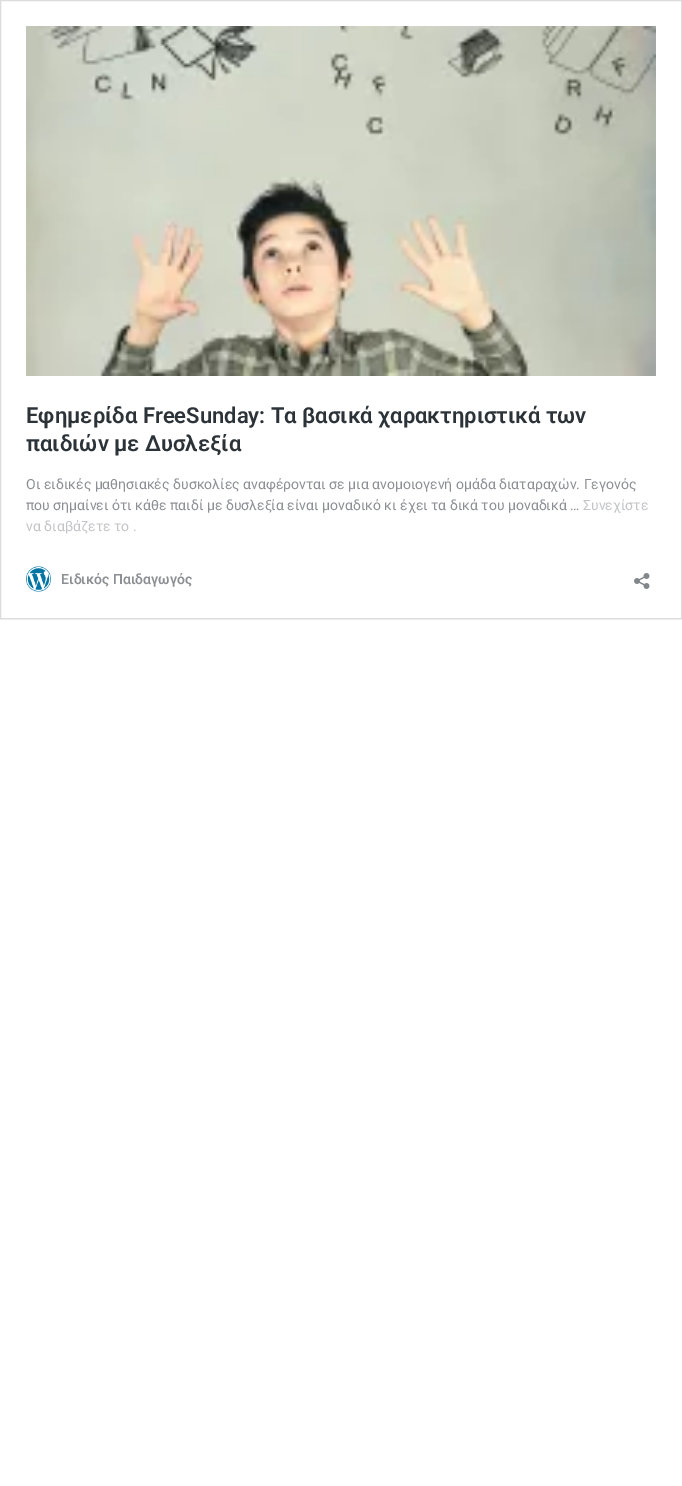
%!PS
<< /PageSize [682 1486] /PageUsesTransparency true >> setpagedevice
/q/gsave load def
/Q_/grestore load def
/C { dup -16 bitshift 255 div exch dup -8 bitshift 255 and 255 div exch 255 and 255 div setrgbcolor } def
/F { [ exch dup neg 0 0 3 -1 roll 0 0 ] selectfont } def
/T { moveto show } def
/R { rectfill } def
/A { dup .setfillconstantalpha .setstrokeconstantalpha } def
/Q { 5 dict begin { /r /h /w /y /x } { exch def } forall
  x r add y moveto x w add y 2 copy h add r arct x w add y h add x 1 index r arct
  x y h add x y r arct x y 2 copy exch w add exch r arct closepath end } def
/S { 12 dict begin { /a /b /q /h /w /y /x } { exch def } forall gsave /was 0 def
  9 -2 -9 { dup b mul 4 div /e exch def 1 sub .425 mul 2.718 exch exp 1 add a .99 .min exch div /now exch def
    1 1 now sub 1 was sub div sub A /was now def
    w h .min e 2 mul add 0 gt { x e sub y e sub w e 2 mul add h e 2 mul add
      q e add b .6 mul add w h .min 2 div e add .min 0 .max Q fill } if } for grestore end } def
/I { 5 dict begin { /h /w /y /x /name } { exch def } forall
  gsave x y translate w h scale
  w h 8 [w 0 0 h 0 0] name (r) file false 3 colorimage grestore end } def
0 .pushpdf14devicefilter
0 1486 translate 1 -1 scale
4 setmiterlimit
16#FFFFFF C
0 0 682 1486 R
q
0 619 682 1 rectclip
16#000000 C
0 1 682 619 0 .5 .05 S
Q_
16#DCDCDE C
.5 .5 681 618 rectstroke
(1.rgb) 26 26 630 350 I
/Roboto-SemiBold 22 F
16#2C3338 C
(Εφημερίδα FreeSunday: Τα βασικά χαρακτηριστικά των) 26 423 T
(παιδιών με Δυσλεξία) 26 451 T
/Roboto-Regular 14 F
16#8C8F94 C
(Οι ειδικές μαθησιακές δυσκολίες αναφέρονται σε μια ανομοιογενή ομάδα διαταραχών. Γεγονός) 26 489 T
(που σημαίνει ότι κάθε παιδί με δυσλεξία είναι μοναδικό κι έχει τα δικά του μοναδικά …) 26 510 T
16#C3C4C7 C
(Συνεχίστε) 583 510 T
(να διαβάζετε το .) 26 531 T
(2.rgb) 26 566 25 26 I
/Roboto-SemiBold 14 F
16#8C8F94 C
(Ειδικός Παιδαγωγός) 61 584 T
(3.rgb) 634 573 16 16 I
.poppdf14devicefilter showpage
